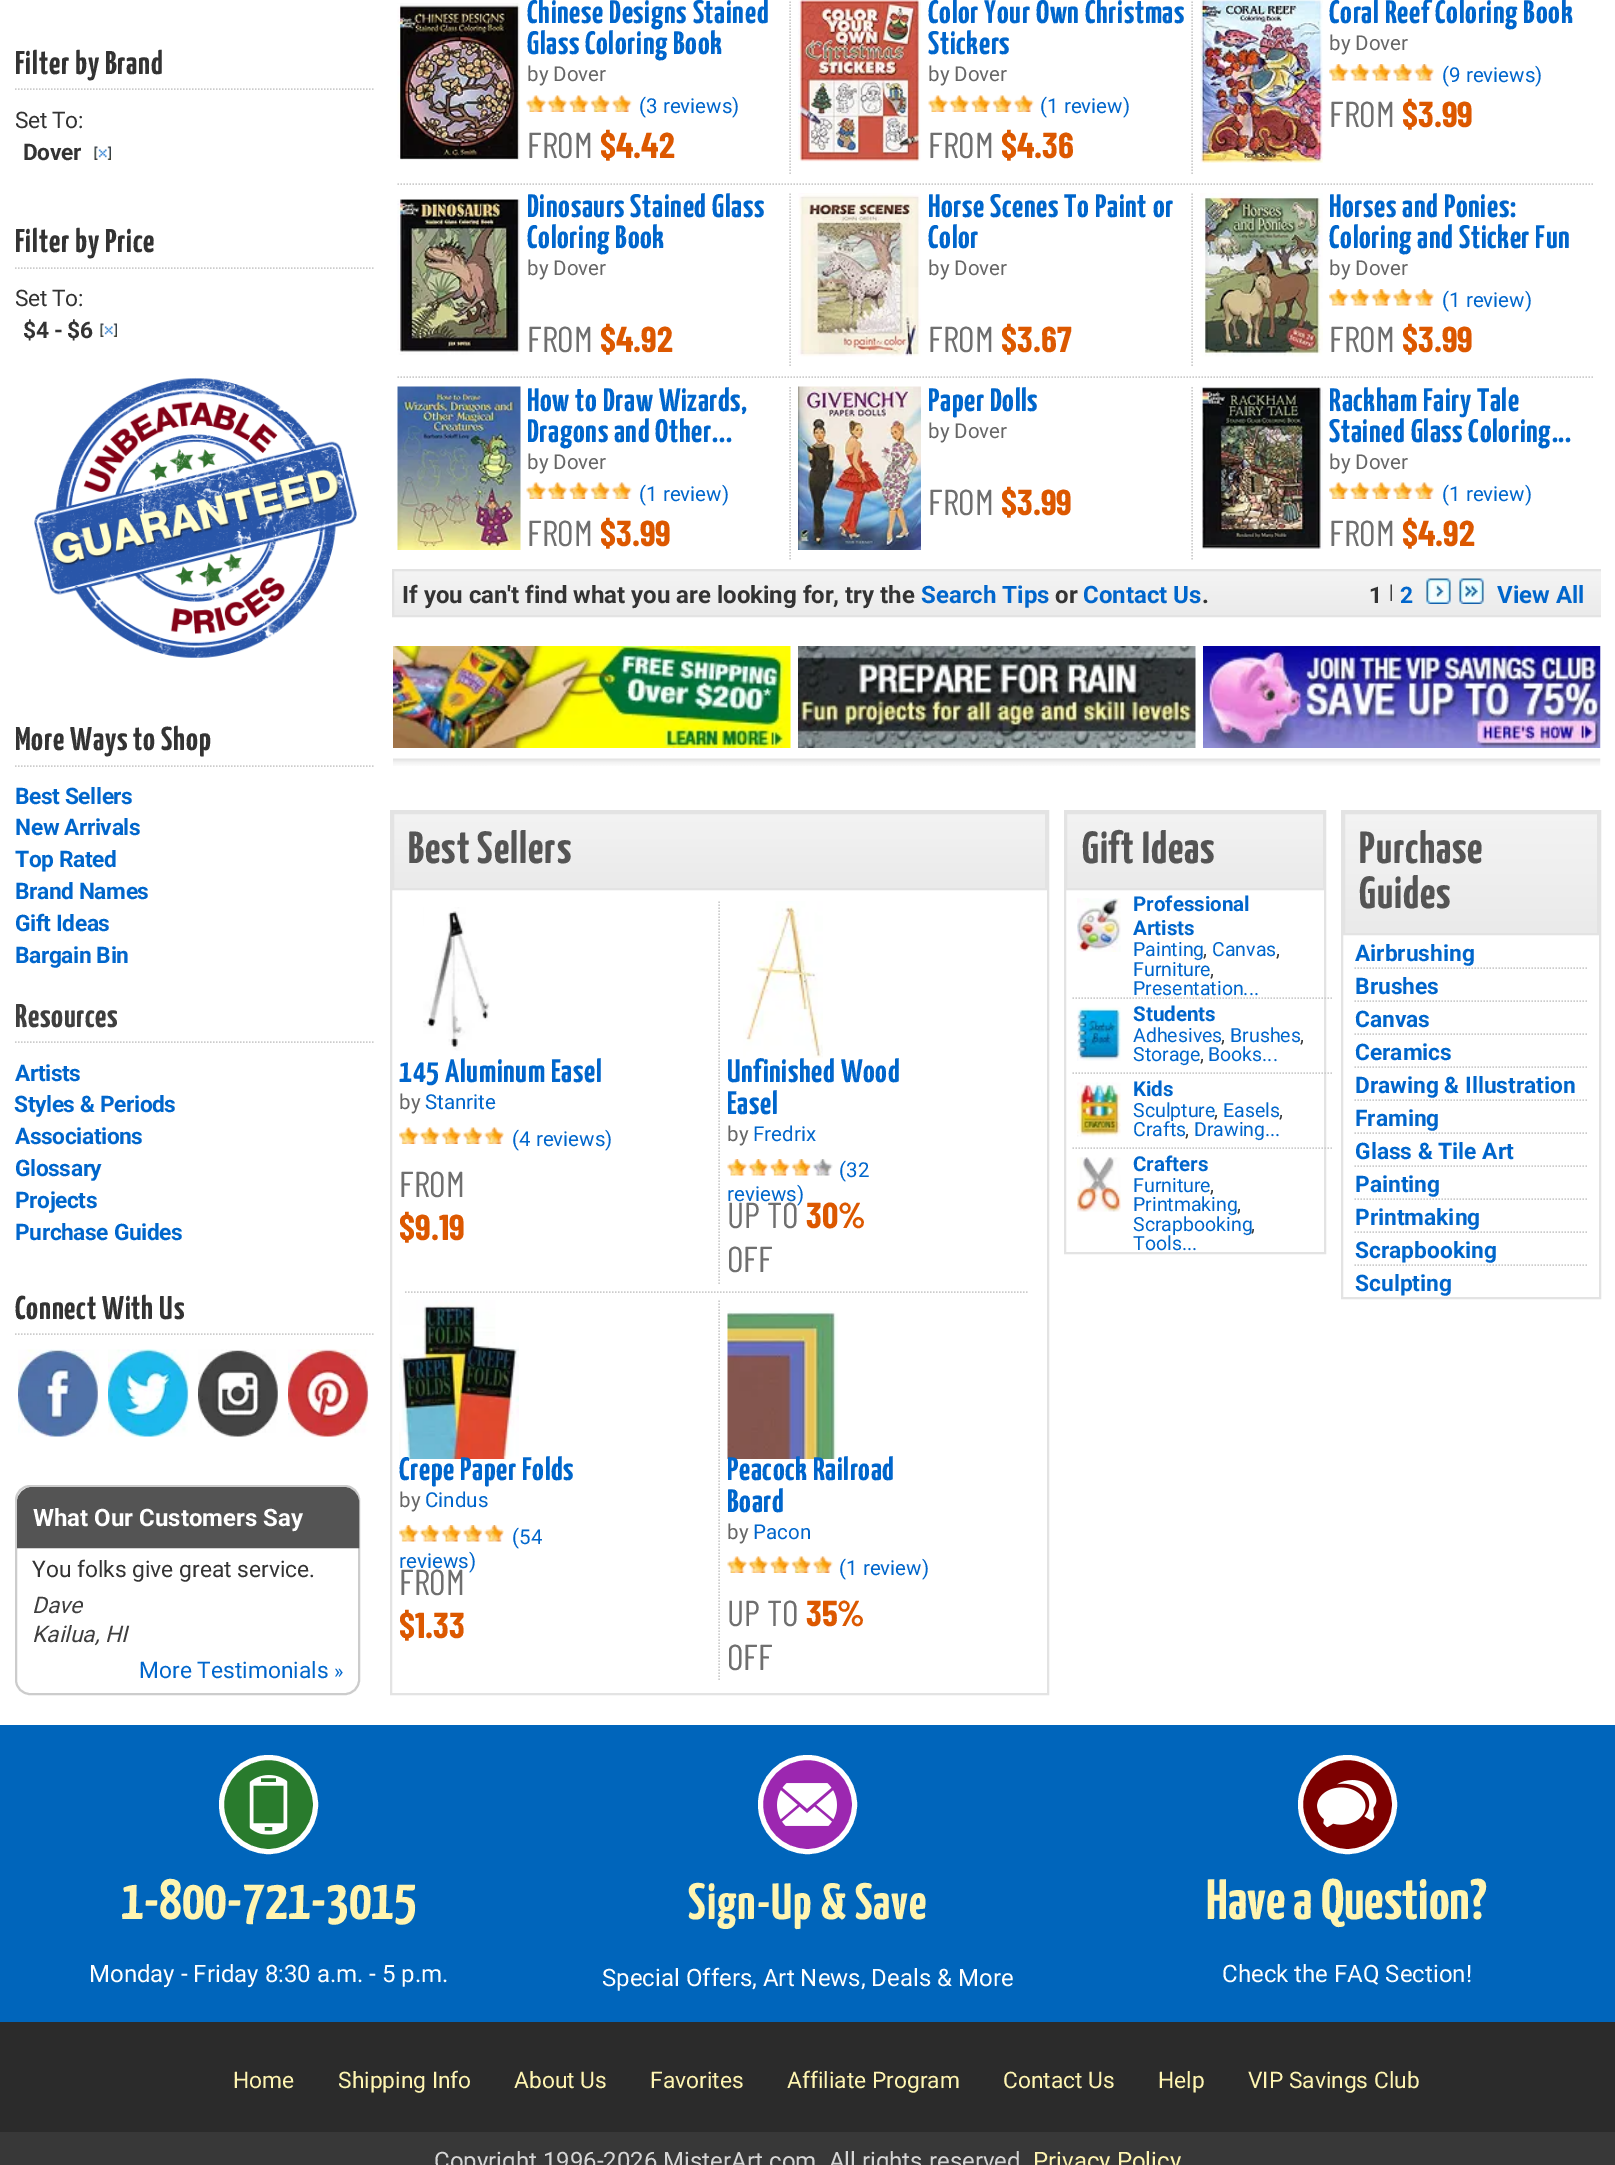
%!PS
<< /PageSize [1615 2165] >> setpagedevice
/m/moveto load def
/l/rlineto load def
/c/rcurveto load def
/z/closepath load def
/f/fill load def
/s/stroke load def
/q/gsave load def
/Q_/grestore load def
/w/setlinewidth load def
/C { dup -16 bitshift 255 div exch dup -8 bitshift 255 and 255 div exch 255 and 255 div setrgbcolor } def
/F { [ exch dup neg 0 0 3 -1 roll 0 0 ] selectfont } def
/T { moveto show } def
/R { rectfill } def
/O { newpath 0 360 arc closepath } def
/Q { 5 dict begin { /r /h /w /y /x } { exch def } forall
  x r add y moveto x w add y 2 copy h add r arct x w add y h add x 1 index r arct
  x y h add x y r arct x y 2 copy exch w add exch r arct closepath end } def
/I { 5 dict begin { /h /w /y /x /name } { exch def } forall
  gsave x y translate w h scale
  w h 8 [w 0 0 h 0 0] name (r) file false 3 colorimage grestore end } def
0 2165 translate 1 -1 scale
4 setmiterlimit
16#FFFFFF C
0 0 1615 2165 R
16#CCCCCC C
1.5 w
[1.5 1.5] 0 setdash
15 89 m 360 0 l s
/YanoneKaffeesatz-ExtraLight 33 F
16#333333 C
15 74 m .7 0 (Filter by Brand) ashow
/Roboto-Regular 22.75 F
15 128 m -.4 0 (Set To:) ashow
/Roboto-Bold 22.75 F
23 160 m -.4 0 (Dover) ashow
(1.rgb) 94 146 17 14 I
16#CCCCCC C
15 268 m 360 0 l s
/YanoneKaffeesatz-ExtraLight 33 F
16#333333 C
15 252 m .7 0 (Filter by Price) ashow
/Roboto-Regular 22.75 F
15 306 m -.4 0 (Set To:) ashow
/Roboto-Bold 22.75 F
23 338 m -.4 0 ($4 - $6) ashow
(1.rgb) 100 323 17 14 I
(2.rgb) 34 377 323 281 I
16#CCCCCC C
15 766 m 360 0 l s
/YanoneKaffeesatz-ExtraLight 33 F
16#333333 C
15 750 m .7 0 (More Ways to Shop) ashow
/Roboto-Bold 22.75 F
16#0066CC C
15 804 m -.4 0 (Best Sellers) ashow
15 835 m -.4 0 (New Arrivals) ashow
15 867 m -.4 0 (Top Rated) ashow
15 899 m -.4 0 (Brand Names) ashow
15 931 m -.4 0 (Gift Ideas) ashow
15 963 m -.4 0 (Bargain Bin) ashow
16#CCCCCC C
15 1042 m 360 0 l s
/YanoneKaffeesatz-ExtraLight 33 F
16#3F3F3F C
15 1027 m .7 0 (Resources) ashow
/Roboto-Bold 22.75 F
16#0066CC C
15 1081 m -.4 0 (Artists) ashow
14 1112 m -.4 0 (Styles & Periods) ashow
15 1144 m -.4 0 (Associations) ashow
15 1176 m -.4 0 (Glossary) ashow
15 1208 m -.4 0 (Projects) ashow
15 1240 m -.4 0 (Purchase Guides) ashow
16#CCCCCC C
15 1334 m 360 0 l s
/YanoneKaffeesatz-ExtraLight 33 F
16#333333 C
15 1319 m .7 0 (Connect With Us) ashow
(3.rgb) 18 1349 81 88 I
(4.rgb) 108 1349 81 88 I
(5.rgb) 198 1349 80 88 I
(6.rgb) 288 1349 81 88 I
16#CCCCCC C
2 w
[] 0 setdash
16 1486 343 208 14 Q s
16#545454 C
32 1488 m 312 0 l 7.5 0 14 6.5 14 14 c 0 45 l -340 0 l 0 -45 l 0 -7.5 6.5 -14 14 -14 c z q f Q_
s
/Roboto-Bold 24 F
16#FFFFFF C
(What Our Customers Say) 33 1526 T
/Roboto-Regular 22.75 F
16#333333 C
(You folks give great service.) 32 1577 T
/Roboto-Italic 22.75 F
16#3F3F3F C
(Dave) 32 1613 T
(Kailua, HI) 32 1642 T
/Roboto-Regular 22.75 F
16#0066CC C
(More Testimonials) 139 1678 T
/Roboto-Regular 20 F
(») 334 1678 T
16#CCCCCC C
1.5 w
[1.5 1.5] 0 setdash
790 -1.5 m 0 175.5 l s
(7.rgb) 397 3 123 157 I
/YanoneKaffeesatz-ExtraLight 32.5 F
16#0066CC C
527 23 m .65 0 (Chinese Designs Stained) ashow
527 54 m .65 0 (Glass Coloring Book) ashow
/Roboto-Regular 20.5 F
16#666666 C
(by Dover) 527 81 T
(8.rgb) 526 95 106 17 I
16#0066CC C
(\(3 reviews\)) 639 113 T
/BarlowCondensed-Regular 36 F
16#6F6F6F C
(FROM) 527 158 T
/BarlowCondensed-Bold 36 F
16#DC5800 C
($4.42) 600 158 T
16#CCCCCC C
1192 -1.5 m 0 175.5 l s
(9.rgb) 798 0 123 162 I
/YanoneKaffeesatz-ExtraLight 32.5 F
16#0066CC C
928 23 m .65 0 (Color Your Own Christmas) ashow
928 54 m .65 0 (Stickers) ashow
/Roboto-Regular 20.5 F
16#666666 C
(by Dover) 928 81 T
(10.rgb) 928 95 106 17 I
16#0066CC C
(\(1 review\)) 1040 113 T
/BarlowCondensed-Regular 36 F
16#6F6F6F C
(FROM) 928 158 T
/BarlowCondensed-Bold 36 F
16#DC5800 C
($4.36) 1001 158 T
(11.rgb) 1200 0 123 163 I
/YanoneKaffeesatz-ExtraLight 32.5 F
16#0066CC C
1329 23 m .65 0 (Coral Reef Coloring Book) ashow
/Roboto-Regular 20.5 F
16#666666 C
(by Dover) 1329 50 T
(12.rgb) 1329 64 105 17 I
16#0066CC C
(\(9 reviews\)) 1442 82 T
/BarlowCondensed-Regular 36 F
16#6F6F6F C
(FROM) 1329 127 T
/BarlowCondensed-Bold 36 F
16#DC5800 C
($3.99) 1402 127 T
16#CCCCCC C
397.5 184 m 1195.5 0 l s
790 193.5 m 0 174 l s
(13.rgb) 397 199 123 156 I
/YanoneKaffeesatz-ExtraLight 32.5 F
16#0066CC C
527 217 m .65 0 (Dinosaurs Stained Glass) ashow
527 248 m .65 0 (Coloring Book) ashow
/Roboto-Regular 20.5 F
16#666666 C
(by Dover) 527 275 T
/BarlowCondensed-Regular 36 F
16#6F6F6F C
(FROM) 527 352 T
/BarlowCondensed-Bold 36 F
16#DC5800 C
($4.92) 600 352 T
16#CCCCCC C
1192 193.5 m 0 174 l s
(14.rgb) 798 193 123 164 I
/YanoneKaffeesatz-ExtraLight 32.5 F
16#0066CC C
928 217 m .65 0 (Horse Scenes To Paint or) ashow
928 248 m .65 0 (Color) ashow
/Roboto-Regular 20.5 F
16#666666 C
(by Dover) 928 275 T
/BarlowCondensed-Regular 36 F
16#6F6F6F C
(FROM) 928 352 T
/BarlowCondensed-Bold 36 F
16#DC5800 C
($3.67) 1001 352 T
(15.rgb) 1200 193 123 164 I
/YanoneKaffeesatz-ExtraLight 32.5 F
16#0066CC C
1329 217 m .65 0 (Horses and Ponies:) ashow
1329 248 m .65 0 (Coloring and Sticker Fun) ashow
/Roboto-Regular 20.5 F
16#666666 C
(by Dover) 1329 275 T
(12.rgb) 1329 289 105 17 I
16#0066CC C
(\(1 review\)) 1442 307 T
/BarlowCondensed-Regular 36 F
16#6F6F6F C
(FROM) 1329 352 T
/BarlowCondensed-Bold 36 F
16#DC5800 C
($3.99) 1402 352 T
16#CCCCCC C
397.5 377 m 1195.5 0 l s
790 387 m 0 174 l s
(16.rgb) 397 386 124 164 I
/YanoneKaffeesatz-ExtraLight 32.5 F
16#0066CC C
527 411 m .65 0 (How to Draw Wizards,) ashow
527 442 m .65 0 (Dragons and Other...) ashow
/Roboto-Regular 20.5 F
16#666666 C
(by Dover) 527 469 T
(8.rgb) 526 482 106 17 I
16#0066CC C
(\(1 review\)) 639 501 T
/BarlowCondensed-Regular 36 F
16#6F6F6F C
(FROM) 527 546 T
/BarlowCondensed-Bold 36 F
16#DC5800 C
($3.99) 600 546 T
16#CCCCCC C
1192 387 m 0 174 l s
(17.rgb) 798 386 123 164 I
/YanoneKaffeesatz-ExtraLight 32.5 F
16#0066CC C
928 411 m .65 0 (Paper Dolls) ashow
/Roboto-Regular 20.5 F
16#666666 C
(by Dover) 928 438 T
/BarlowCondensed-Regular 36 F
16#6F6F6F C
(FROM) 928 515 T
/BarlowCondensed-Bold 36 F
16#DC5800 C
($3.99) 1001 515 T
(18.rgb) 1200 386 123 163 I
/YanoneKaffeesatz-ExtraLight 32.5 F
16#0066CC C
1329 411 m .65 0 (Rackham Fairy Tale) ashow
1329 442 m .65 0 (Stained Glass Coloring...) ashow
/Roboto-Regular 20.5 F
16#666666 C
(by Dover) 1329 469 T
(19.rgb) 1329 482 105 17 I
16#0066CC C
(\(1 review\)) 1442 501 T
/BarlowCondensed-Regular 36 F
16#6F6F6F C
(FROM) 1329 546 T
/BarlowCondensed-Bold 36 F
16#DC5800 C
($4.92) 1402 546 T
q 394 571 m 1207 0 l 0 44 l -1207 0 l z clip newpath
<< /ShadingType 2 /ColorSpace /DeviceRGB /Coords [998 570 998 615] /Extend [true true] /Function << /FunctionType 2 /Domain [0 1] /C0 [.957 .957 .957] /C1 [.922 .922 .922] /N 1 >> >> shfill Q_
q
375 0 1226 1695 rectclip
16#E3E3E3 C
2 w
[] 0 setdash
393 570 1211 46 rectstroke
Q_
/Roboto-Bold 24 F
16#333333 C
(If you can't find what you are looking for, try the) 402 603 T
16#0066CC C
(Search Tips) 921 603 T
16#333333 C
(or) 1055 603 T
16#0066CC C
(Contact Us) 1083 603 T
16#333333 C
(.) 1202 603 T
/Roboto-Bold 22.75 F
(1) 1369 603 T
(20.rgb) 1390 584 2 17 I
16#0066CC C
(2) 1400 603 T
(21.rgb) 1426 578 25 26 I
(22.rgb) 1459 578 25 26 I
/Roboto-Bold 24 F
(View All) 1497 603 T
(23.rgb) 393 758 1208 8 I
(24.rgb) 393 646 398 102 I
(25.rgb) 798 646 398 102 I
(26.rgb) 1203 646 398 102 I
16#E3E3E3 C
2 w
[] 0 setdash
391 811 657 883 rectstroke
q 394 814 m 651 0 l 0 74 l -651 0 l z clip newpath
<< /ShadingType 2 /ColorSpace /DeviceRGB /Coords [719 813 719 888] /Extend [true true] /Function << /FunctionType 3 /Domain [0 1] /Functions [<< /FunctionType 2 /Domain [0 1] /C0 [.953 .953 .953] /C1 [.953 .953 .953] /N 1 >> << /FunctionType 2 /Domain [0 1] /C0 [.953 .953 .953] /C1 [.918 .918 .918] /N 1 >>] /Bounds [.01] /Encode [0 1 0 1] >> >> shfill Q_
393 813 653 76 rectstroke
/YanoneKaffeesatz-ExtraLight 45 F
16#545454 C
408 863 m .9 0 (Best Sellers) ashow
16#CCCCCC C
1.5 w
[1.5 1.5] 0 setdash
719 901.5 m 0 382.5 l s
(27.rgb) 423 907 67 144 I
/YanoneKaffeesatz-ExtraLight 32.5 F
16#0066CC C
399 1082 m .65 0 (145 Aluminum Easel) ashow
/Roboto-Regular 20.5 F
16#666666 C
(by) 399 1109 T
16#0066CC C
(Stanrite) 425 1109 T
(28.rgb) 399 1127 105 17 I
(\(4 reviews\)) 512 1146 T
/BarlowCondensed-Regular 36 F
16#6F6F6F C
(FROM) 399 1197 T
/BarlowCondensed-Bold 36 F
16#DC5800 C
($9.19) 399 1240 T
(29.rgb) 743 901 80 157 I
/YanoneKaffeesatz-ExtraLight 32.5 F
16#0066CC C
727 1082 m .65 0 (Unfinished Wood) ashow
727 1114 m .65 0 (Easel) ashow
/Roboto-Regular 20.5 F
16#666666 C
(by) 727 1141 T
16#0066CC C
(Fredrix) 753 1141 T
(30.rgb) 727 1159 106 17 I
(\(32) 839 1177 T
(reviews\)) 727 1201 T
/BarlowCondensed-Regular 36 F
16#6F6F6F C
(UP TO) 727 1228 T
/BarlowCondensed-Bold 36 F
16#DC5800 C
(30%) 806 1228 T
/BarlowCondensed-Regular 36 F
16#6F6F6F C
(OFF) 727 1272 T
16#CCCCCC C
405 1292 m 622.5 0 l s
719 1300.5 m 0 381 l s
(31.rgb) 399 1300 120 159 I
/YanoneKaffeesatz-ExtraLight 32.5 F
16#0066CC C
399 1480 m .65 0 (Crepe Paper Folds) ashow
/Roboto-Regular 20.5 F
16#666666 C
(by) 399 1507 T
16#0066CC C
(Cindus) 425 1507 T
(32.rgb) 399 1525 105 17 I
(\(54) 512 1544 T
(reviews\)) 399 1568 T
/BarlowCondensed-Regular 36 F
16#6F6F6F C
(FROM) 399 1595 T
/BarlowCondensed-Bold 36 F
16#DC5800 C
($1.33) 399 1638 T
(33.rgb) 727 1310 111 149 I
/YanoneKaffeesatz-ExtraLight 32.5 F
16#0066CC C
727 1480 m .65 0 (Peacock Railroad) ashow
727 1512 m .65 0 (Board) ashow
/Roboto-Regular 20.5 F
16#666666 C
(by) 727 1539 T
16#0066CC C
(Pacon) 753 1539 T
(34.rgb) 727 1556 106 17 I
(\(1 review\)) 839 1575 T
/BarlowCondensed-Regular 36 F
16#6F6F6F C
(UP TO) 727 1626 T
/BarlowCondensed-Bold 36 F
16#DC5800 C
(35%) 806 1626 T
/BarlowCondensed-Regular 36 F
16#6F6F6F C
(OFF) 727 1670 T
16#E3E3E3 C
2 w
[] 0 setdash
1065 811 260 442 rectstroke
q 1067 814 m 256 0 l 0 74 l -256 0 l z clip newpath
<< /ShadingType 2 /ColorSpace /DeviceRGB /Coords [1195 813 1195 888] /Extend [true true] /Function << /FunctionType 3 /Domain [0 1] /Functions [<< /FunctionType 2 /Domain [0 1] /C0 [.953 .953 .953] /C1 [.953 .953 .953] /N 1 >> << /FunctionType 2 /Domain [0 1] /C0 [.953 .953 .953] /C1 [.918 .918 .918] /N 1 >>] /Bounds [.01] /Encode [0 1 0 1] >> >> shfill Q_
1066 813 258 76 rectstroke
/YanoneKaffeesatz-ExtraLight 45 F
16#545454 C
1082 863 m .9 0 (Gift Ideas) ashow
16#CCCCCC C
1.5 w
[1.5 1.5] 0 setdash
1072.5 998 m 259.5 0 l s
(35.rgb) 1077 898 44 54 I
/Roboto-Bold 20.5 F
16#0066CC C
(Professional) 1133 911 T
(Artists) 1133 935 T
/Roboto-Regular 19.5 F
(Painting) 1133 956 T
16#333333 C
(,) 1203 956 T
16#0066CC C
(Canvas) 1212 956 T
16#333333 C
(,) 1276 956 T
16#0066CC C
(Furniture) 1133 976 T
16#333333 C
(,) 1210 976 T
16#0066CC C
(Presentation...) 1133 995 T
16#CCCCCC C
1072.5 1073 m 259.5 0 l s
(36.rgb) 1077 1007 44 54 I
/Roboto-Bold 20.5 F
16#0066CC C
(Students) 1133 1021 T
/Roboto-Regular 19.5 F
(Adhesives) 1133 1042 T
16#333333 C
(,) 1221 1042 T
16#0066CC C
(Brushes) 1230 1042 T
16#333333 C
(,) 1300 1042 T
16#0066CC C
(Storage) 1133 1061 T
16#333333 C
(,) 1200 1061 T
16#0066CC C
(Books...) 1208 1061 T
16#CCCCCC C
1072.5 1148 m 259.5 0 l s
(37.rgb) 1077 1082 44 55 I
/Roboto-Bold 20.5 F
16#0066CC C
(Kids) 1133 1096 T
/Roboto-Regular 19.5 F
(Sculpture) 1133 1117 T
16#333333 C
(,) 1214 1117 T
16#0066CC C
(Easels) 1223 1117 T
16#333333 C
(,) 1279 1117 T
16#0066CC C
(Crafts) 1133 1136 T
16#333333 C
(,) 1185 1136 T
16#0066CC C
(Drawing...) 1194 1136 T
(38.rgb) 1077 1157 44 55 I
/Roboto-Bold 20.5 F
(Crafters) 1133 1171 T
/Roboto-Regular 19.5 F
(Furniture) 1133 1192 T
16#333333 C
(,) 1210 1192 T
16#0066CC C
(Printmaking) 1133 1211 T
16#333333 C
(,) 1237 1211 T
16#0066CC C
(Scrapbooking) 1133 1231 T
16#333333 C
(,) 1251 1231 T
16#0066CC C
(Tools...) 1133 1250 T
16#E3E3E3 C
2 w
[] 0 setdash
1342 811 258 487 rectstroke
q 1345 814 m 252 0 l 0 119 l -252 0 l z clip newpath
<< /ShadingType 2 /ColorSpace /DeviceRGB /Coords [1471 813 1471 933] /Extend [true true] /Function << /FunctionType 3 /Domain [0 1] /Functions [<< /FunctionType 2 /Domain [0 1] /C0 [.953 .953 .953] /C1 [.953 .953 .953] /N 1 >> << /FunctionType 2 /Domain [0 1] /C0 [.953 .953 .953] /C1 [.918 .918 .918] /N 1 >>] /Bounds [.01] /Encode [0 1 0 1] >> >> shfill Q_
1344 813 254 121 rectstroke
/YanoneKaffeesatz-ExtraLight 45 F
16#545454 C
1359 863 m .9 0 (Purchase) ashow
1359 908 m .9 0 (Guides) ashow
16#CCCCCC C
1.5 w
[1.5 1.5] 0 setdash
1354.5 968 m 232.5 0 l s
/Roboto-Bold 22.75 F
16#0066CC C
(Airbrushing) 1355 961 T
16#CCCCCC C
1354.5 1001 m 232.5 0 l s
16#0066CC C
(Brushes) 1355 994 T
16#CCCCCC C
1354.5 1034 m 232.5 0 l s
16#0066CC C
(Canvas) 1355 1027 T
16#CCCCCC C
1354.5 1067 m 232.5 0 l s
16#0066CC C
(Ceramics) 1355 1060 T
16#CCCCCC C
1354.5 1100 m 232.5 0 l s
16#0066CC C
(Drawing & Illustration) 1355 1093 T
16#CCCCCC C
1354.5 1133 m 232.5 0 l s
16#0066CC C
(Framing) 1355 1126 T
16#CCCCCC C
1354.5 1166 m 232.5 0 l s
16#0066CC C
(Glass & Tile Art) 1355 1159 T
16#CCCCCC C
1354.5 1199 m 232.5 0 l s
16#0066CC C
(Painting) 1355 1192 T
16#CCCCCC C
1354.5 1232 m 232.5 0 l s
16#0066CC C
(Printmaking) 1355 1225 T
16#CCCCCC C
1354.5 1265 m 232.5 0 l s
16#0066CC C
(Scrapbooking) 1355 1258 T
(Sculpting) 1355 1291 T
16#0065BB C
0 1725 1615 297 R
16#297B2D C
268.5 1804.5 47 O q f Q_
16#FFFFFF C
5 w
[] 0 setdash
s
(39.rgb) 249 1775 39 60 I
/YanoneKaffeesatz-ExtraLight 57 F
16#FFF5B1 C
(1-800-721-3015) 121 1919 T
/Roboto-Regular 24 F
16#FFFFFF C
(Monday - Friday 8:30 a.m. - 5 p.m.) 89 1982 T
16#9C27B0 C
807.5 1804.5 47 O q f Q_
16#FFFFFF C
s
(40.rgb) 777 1783 60 43 I
/YanoneKaffeesatz-ExtraLight 51 F
16#FFF5B1 C
688 1919 m 1 0 (Sign-Up & Save) ashow
/Roboto-Regular 24 F
16#FFFFFF C
(Special Offers, Art News, Deals & More) 602 1986 T
16#7D0000 C
1347.5 1804.5 47 O q f Q_
16#FFFFFF C
s
(41.rgb) 1317 1780 60 48 I
/YanoneKaffeesatz-ExtraLight 57 F
16#FFF5B1 C
(Have a Question?) 1206 1919 T
/Roboto-Regular 24 F
16#FFFFFF C
(Check the FAQ Section!) 1222 1982 T
16#2B2B2B C
0 2022 1615 110 R
/Roboto-Regular 22.75 F
16#FFF5B1 C
(Home) 233 2088 T
(Shipping Info) 338 2088 T
(About Us) 514 2088 T
(Favorites) 650 2088 T
(Affiliate Program) 787 2088 T
(Contact Us) 1003 2088 T
(Help) 1158 2088 T
(VIP Savings Club) 1248 2088 T
16#383838 C
0 2132 1615 33 R
/Roboto-Regular 24 F
16#D6D6D6 C
(Copyright 1996-2026 MisterArt.com. All rights reserved) 434 2169 T
16#FFF5B1 C
(Privacy Policy) 1033 2169 T
showpage
